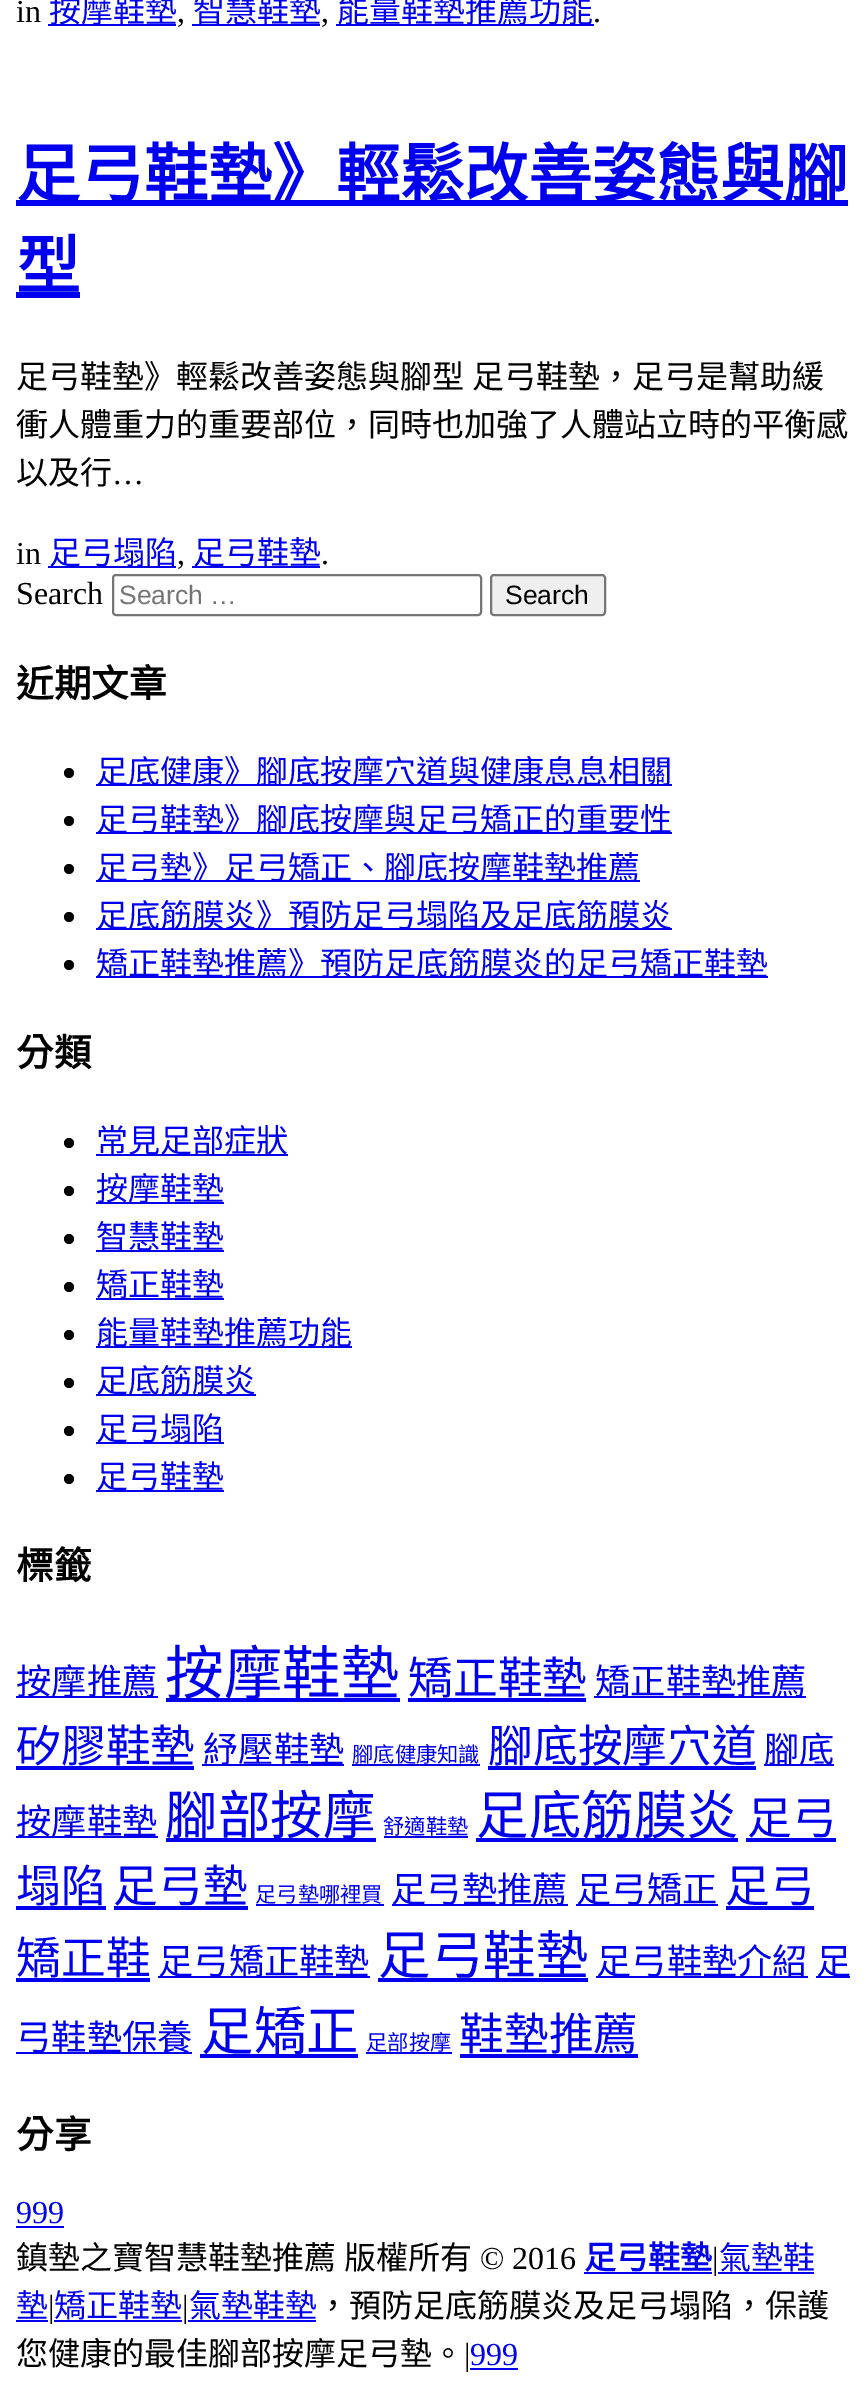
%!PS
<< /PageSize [868 2392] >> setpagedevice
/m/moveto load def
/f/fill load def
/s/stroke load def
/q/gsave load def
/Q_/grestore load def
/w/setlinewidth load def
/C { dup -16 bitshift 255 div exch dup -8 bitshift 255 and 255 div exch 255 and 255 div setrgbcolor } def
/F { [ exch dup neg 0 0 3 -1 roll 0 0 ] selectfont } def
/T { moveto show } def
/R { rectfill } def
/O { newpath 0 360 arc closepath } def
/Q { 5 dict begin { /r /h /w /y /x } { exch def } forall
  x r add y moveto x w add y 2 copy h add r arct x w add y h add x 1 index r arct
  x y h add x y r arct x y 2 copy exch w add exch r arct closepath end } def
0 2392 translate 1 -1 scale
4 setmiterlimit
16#FFFFFF C
0 0 868 2392 R
/LiberationSerif-Regular 32 F
16#000000 C
(in) 16 22 T
16#0000EE C
48 24 128 2 R
/NotoSansCJKTC-Regular 32 F
(按摩鞋墊) 49 22 T
/LiberationSerif-Regular 32 F
16#000000 C
(,) 177 22 T
16#0000EE C
192 24 128 2 R
/NotoSansCJKTC-Regular 32 F
(智慧鞋墊) 193 22 T
/LiberationSerif-Regular 32 F
16#000000 C
(,) 321 22 T
16#0000EE C
336 24 258 2 R
/NotoSansCJKTC-Regular 32 F
(能量鞋墊推薦功能) 337 22 T
/LiberationSerif-Regular 32 F
16#000000 C
(.) 593 22 T
16#0000EE C
16 200 832 6 R
/NotoSansCJKTC-Bold 64 F
(足弓鞋墊》輕鬆改善姿態與腳) 16 197 T
(型) 16 289 T
16 292 64 6 R
/NotoSansCJKTC-Regular 32 F
16#000000 C
16 388 m 1 0 32 (足弓鞋墊》輕鬆改善姿態與腳型 足弓鞋墊，足弓是幫助緩) widthshow
(衝人體重力的重要部位，同時也加強了人體站立時的平衡感) 16 436 T
(以及行) 16 484 T
/LiberationSerif-Regular 32 F
(…) 112 484 T
(in) 16 564 T
16#0000EE C
48 566 128 2 R
/NotoSansCJKTC-Regular 32 F
(足弓塌陷) 49 564 T
/LiberationSerif-Regular 32 F
16#000000 C
(,) 177 564 T
16#0000EE C
192 566 128 2 R
/NotoSansCJKTC-Regular 32 F
(足弓鞋墊) 193 564 T
/LiberationSerif-Regular 32 F
16#000000 C
(.) 321 564 T
(Search) 16 604 T
16#767676 C
2 w
113 575 368 40 3 Q s
/LiberationSans-Regular 26.5 F
16#757575 C
(Search …) 119 604 T
16#EFEFEF C
491 575 114 40 3 Q q f Q_
16#767676 C
s
16#000000 C
(Search) 505 604 T
/NotoSansCJKTC-Bold 37.5 F
(近期文章) 16 697 T
69 773 5 O f
16#0000EE C
96 784 576 2 R
/NotoSansCJKTC-Regular 32 F
(足底健康》腳底按摩穴道與健康息息相關) 96 783 T
16#000000 C
69 821 5 O f
16#0000EE C
96 832 576 2 R
(足弓鞋墊》腳底按摩與足弓矯正的重要性) 96 831 T
16#000000 C
69 869 5 O f
16#0000EE C
96 880 544 2 R
(足弓墊》足弓矯正、腳底按摩鞋墊推薦) 96 879 T
16#000000 C
69 917 5 O f
16#0000EE C
96 928 576 2 R
(足底筋膜炎》預防足弓塌陷及足底筋膜炎) 96 927 T
16#000000 C
69 965 5 O f
16#0000EE C
96 976 672 2 R
(矯正鞋墊推薦》預防足底筋膜炎的足弓矯正鞋墊) 96 975 T
/NotoSansCJKTC-Bold 37.5 F
16#000000 C
(分類) 16 1066 T
69 1143 5 O f
16#0000EE C
96 1154 192 2 R
/NotoSansCJKTC-Regular 32 F
(常見足部症狀) 96 1152 T
16#000000 C
69 1191 5 O f
16#0000EE C
96 1202 128 2 R
(按摩鞋墊) 96 1200 T
16#000000 C
69 1239 5 O f
16#0000EE C
96 1250 128 2 R
(智慧鞋墊) 96 1248 T
16#000000 C
69 1287 5 O f
16#0000EE C
96 1298 128 2 R
(矯正鞋墊) 96 1296 T
16#000000 C
69 1335 5 O f
16#0000EE C
96 1346 256 2 R
(能量鞋墊推薦功能) 96 1344 T
16#000000 C
69 1383 5 O f
16#0000EE C
96 1394 160 2 R
(足底筋膜炎) 96 1392 T
16#000000 C
69 1431 5 O f
16#0000EE C
96 1442 128 2 R
(足弓塌陷) 96 1440 T
16#000000 C
69 1479 5 O f
16#0000EE C
96 1490 128 2 R
(足弓鞋墊) 96 1488 T
/NotoSansCJKTC-Bold 37.5 F
16#000000 C
(標籤) 16 1579 T
16#0000EE C
16 1696 142 2 R
/NotoSansCJKTC-Regular 35.25 F
(按摩推薦) 16 1694 T
166 1698 234 4 R
/NotoSansCJKTC-Regular 58.5 F
(按摩鞋墊) 165 1694 T
/NotoSansCJKTC-Regular 44.75 F
(矯正鞋墊) 408 1694 T
408 1698 178 4 R
594 1696 212 2 R
/NotoSansCJKTC-Regular 35.25 F
(矯正鞋墊推薦) 595 1694 T
/NotoSansCJKTC-Regular 44.75 F
(矽膠鞋墊) 16 1762 T
16 1766 178 4 R
202 1764 142 2 R
/NotoSansCJKTC-Regular 35.25 F
(紓壓鞋墊) 203 1762 T
/NotoSansCJKTC-Regular 21.25 F
(腳底健康知識) 352 1762 T
352 1764 128 2 R
/NotoSansCJKTC-Regular 44.75 F
(腳底按摩穴道) 488 1762 T
488 1766 268 4 R
764 1764 70 2 R
/NotoSansCJKTC-Regular 35.25 F
(腳底) 764 1762 T
16 1836 142 2 R
(按摩鞋墊) 16 1834 T
166 1838 210 4 R
/NotoSansCJKTC-Regular 52.5 F
(腳部按摩) 165 1834 T
/NotoSansCJKTC-Regular 21.25 F
(舒適鞋墊) 383 1834 T
384 1836 84 2 R
476 1838 262 4 R
/NotoSansCJKTC-Regular 52.5 F
(足底筋膜炎) 476 1834 T
/NotoSansCJKTC-Regular 44.75 F
(足弓) 747 1834 T
746 1838 90 4 R
(塌陷) 16 1902 T
16 1906 90 4 R
(足弓墊) 113 1902 T
114 1906 134 4 R
/NotoSansCJKTC-Regular 21.25 F
(足弓墊哪裡買) 255 1902 T
256 1904 128 2 R
392 1904 176 2 R
/NotoSansCJKTC-Regular 35.25 F
(足弓墊推薦) 391 1902 T
576 1904 142 2 R
(足弓矯正) 576 1902 T
/NotoSansCJKTC-Regular 44.75 F
(足弓) 725 1902 T
726 1906 88 4 R
(矯正鞋) 16 1974 T
16 1978 134 4 R
158 1976 212 2 R
/NotoSansCJKTC-Regular 35.25 F
(足弓矯正鞋墊) 158 1974 T
378 1978 210 4 R
/NotoSansCJKTC-Regular 52.5 F
(足弓鞋墊) 378 1974 T
596 1976 212 2 R
/NotoSansCJKTC-Regular 35.25 F
(足弓鞋墊介紹) 596 1974 T
816 1976 34 2 R
(足) 816 1974 T
16 2052 176 2 R
(弓鞋墊保養) 16 2050 T
200 2054 158 4 R
/NotoSansCJKTC-Regular 52.5 F
(足矯正) 201 2050 T
/NotoSansCJKTC-Regular 21.25 F
(足部按摩) 366 2050 T
366 2052 86 2 R
/NotoSansCJKTC-Regular 44.75 F
(鞋墊推薦) 459 2050 T
460 2054 178 4 R
/NotoSansCJKTC-Bold 37.5 F
16#000000 C
(分享) 16 2148 T
/LiberationSerif-Regular 32 F
16#0000EE C
(999) 16 2223 T
16 2226 48 2 R
/NotoSansCJKTC-Regular 32 F
16#000000 C
(鎮墊之寶智慧鞋墊推薦) 16 2269 T
(版權所有) 344 2269 T
/LiberationSerif-Regular 32 F
(© 2016) 480 2269 T
/NotoSansCJKTC-Bold 32 F
16#0000EE C
(足弓鞋墊) 584 2269 T
584 2272 128 2 R
/LiberationSerif-Regular 32 F
16#000000 C
(|) 712 2269 T
/NotoSansCJKTC-Regular 32 F
16#0000EE C
(氣墊鞋) 719 2269 T
718 2272 96 2 R
(墊) 16 2317 T
16 2320 32 2 R
/LiberationSerif-Regular 32 F
16#000000 C
(|) 48 2317 T
/NotoSansCJKTC-Regular 32 F
16#0000EE C
(矯正鞋墊) 54 2317 T
54 2320 128 2 R
/LiberationSerif-Regular 32 F
16#000000 C
(|) 182 2317 T
/NotoSansCJKTC-Regular 32 F
16#0000EE C
(氣墊鞋墊) 189 2317 T
188 2320 128 2 R
16#000000 C
(，預防足底筋膜炎及足弓塌陷，保護) 317 2317 T
(您健康的最佳腳部按摩足弓墊。) 16 2365 T
/LiberationSerif-Regular 32 F
(|) 464 2365 T
16#0000EE C
(999) 470 2365 T
470 2368 48 2 R
showpage
